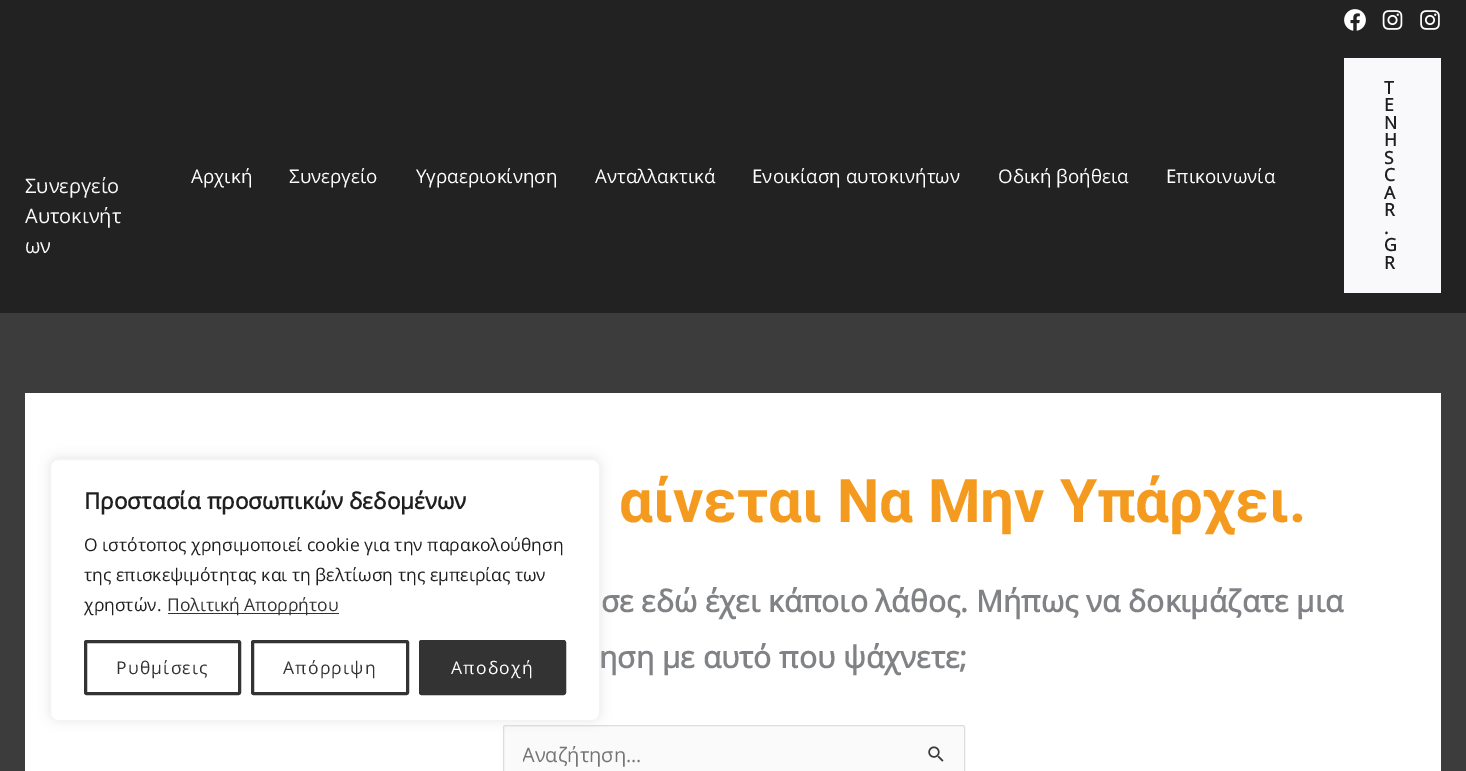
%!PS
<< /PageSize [1466 771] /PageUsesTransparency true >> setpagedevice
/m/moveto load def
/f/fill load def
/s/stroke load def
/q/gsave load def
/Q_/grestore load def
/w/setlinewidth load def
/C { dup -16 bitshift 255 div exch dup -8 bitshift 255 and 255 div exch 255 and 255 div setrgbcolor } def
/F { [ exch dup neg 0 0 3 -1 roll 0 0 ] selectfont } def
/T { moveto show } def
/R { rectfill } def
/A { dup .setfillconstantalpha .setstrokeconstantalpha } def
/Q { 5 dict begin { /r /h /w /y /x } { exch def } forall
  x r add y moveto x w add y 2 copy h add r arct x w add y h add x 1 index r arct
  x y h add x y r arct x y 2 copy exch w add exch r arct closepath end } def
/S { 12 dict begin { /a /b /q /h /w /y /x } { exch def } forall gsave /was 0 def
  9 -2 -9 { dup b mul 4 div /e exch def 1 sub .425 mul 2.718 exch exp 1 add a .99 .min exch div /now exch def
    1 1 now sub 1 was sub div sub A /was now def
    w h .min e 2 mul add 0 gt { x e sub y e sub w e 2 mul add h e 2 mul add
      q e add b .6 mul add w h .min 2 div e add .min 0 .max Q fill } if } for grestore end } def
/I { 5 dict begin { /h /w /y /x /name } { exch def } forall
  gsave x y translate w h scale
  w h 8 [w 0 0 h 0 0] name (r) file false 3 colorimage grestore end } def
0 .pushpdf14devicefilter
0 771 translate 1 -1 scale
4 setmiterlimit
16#3C3C3C C
0 0 1466 771 R
16#222222 C
0 0 1466 313 R
(1.rgb) 1344 9 22 22 I
(2.rgb) 1382 10 21 20 I
(3.rgb) 1420 10 20 20 I
/OpenSans-Regular 20 F
16#F9F9FB C
(Συνεργείο) 25 193 T
(Αυτοκινήτ) 25 223 T
(ων) 25 253 T
/OpenSans-Regular 18.75 F
16#FFFFFF C
(Αρχική) 191 183 T
(Συνεργείο) 289 183 T
(Υγραεριοκίνηση) 416 183 T
(Ανταλλακτικά) 595 183 T
(Ενοικίαση αυτοκινήτων) 752 183 T
(Οδική βοήθεια) 998 183 T
(Επικοινωνία) 1166 183 T
16#F9F9FB C
1344 58 97 235 R
/OpenSans-Bold 17.5 F
16#1F1F1F C
1384 94 m 1.25 0 (T) ashow
1384 111 m 1.25 0 (E) ashow
1384 129 m 1.25 0 (N) ashow
1384 146 m 1.25 0 (H) ashow
1384 164 m 1.25 0 (S) ashow
1384 181 m 1.25 0 (C) ashow
1384 199 m 1.25 0 (A) ashow
1384 216 m 1.25 0 (R) ashow
1384 234 m 1.25 0 (.) ashow
1384 251 m 1.25 0 (G) ashow
1384 269 m 1.25 0 (R) ashow
16#FFFFFF C
25 393 1416 378 R
/Roboto-Bold 60 F
16#F49A1E C
(αίνεται Να Μην Υπάρχει.) 619 522 T
/OpenSans-Bold 30 F
16#808285 C
(σε εδώ έχει κάποιο λάθος. Μήπως να δοκιμάζατε μια) 601 612 T
(ηση με αυτό που ψάχνετε;) 599 668 T
16#FAFAFA C
503.5 725.5 461 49 2 Q q f Q_
16#DDDDDD C
s
q
523 741 380 28 rectclip
/OpenSans-Regular 20 F
16#757575 C
(Αναζήτηση...) 522 762 T
Q_
(4.rgb) 928 746 16 16 I
16#ACABAB C
50 458 550 262 8 6 .3 S
16#FFFFFF C
50.5 459.5 549 261 7.5 Q q f Q_
16#F4F4F4 C
s
/OpenSans-Bold 22.5 F
16#1F1F1F C
(Προστασία προσωπικών δεδομένων) 84 509 T
/OpenSans-Regular 17.5 F
(Ο ιστότοπος χρησιμοποιεί cookie για την παρακολούθηση) 84 551 T
(της επισκεψιμότητας και τη βελτίωση της εμπειρίας των) 84 581 T
(χρηστών.) 84 611 T
16#333333 C
168 613 171 1 R
(Πολιτική Απορρήτου) 167 611 T
3 w
85.5 641.5 154 52 1 Q s
116 674 m 1.25 0 (Ρυθμίσεις) ashow
252.5 641.5 155 52 1 Q s
283 674 m 1.25 0 (Απόρριψη) ashow
420.5 641.5 144 52 1 Q q f Q_
s
16#FFFFFF C
451 674 m 1.25 0 (Αποδοχή) ashow
.poppdf14devicefilter showpage
